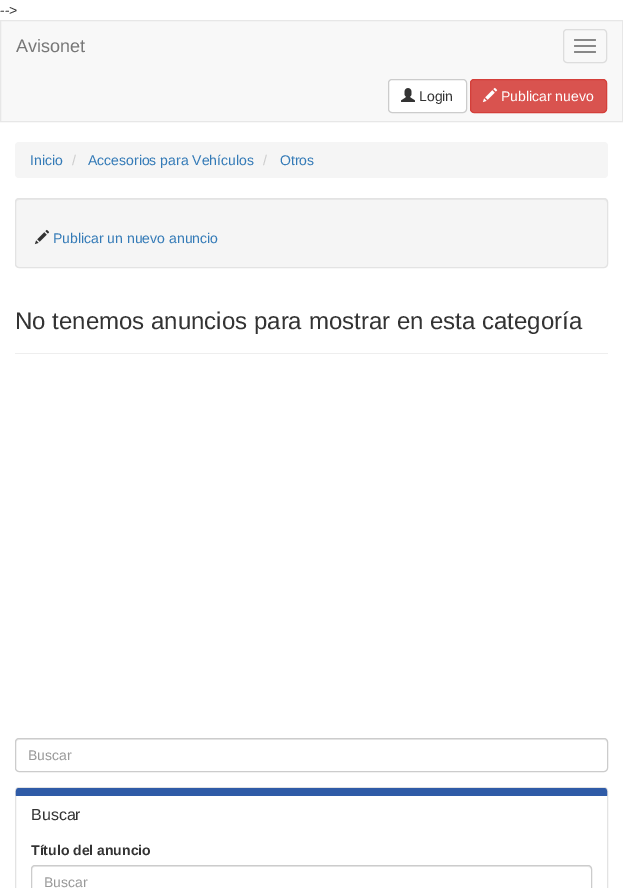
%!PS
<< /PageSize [623 888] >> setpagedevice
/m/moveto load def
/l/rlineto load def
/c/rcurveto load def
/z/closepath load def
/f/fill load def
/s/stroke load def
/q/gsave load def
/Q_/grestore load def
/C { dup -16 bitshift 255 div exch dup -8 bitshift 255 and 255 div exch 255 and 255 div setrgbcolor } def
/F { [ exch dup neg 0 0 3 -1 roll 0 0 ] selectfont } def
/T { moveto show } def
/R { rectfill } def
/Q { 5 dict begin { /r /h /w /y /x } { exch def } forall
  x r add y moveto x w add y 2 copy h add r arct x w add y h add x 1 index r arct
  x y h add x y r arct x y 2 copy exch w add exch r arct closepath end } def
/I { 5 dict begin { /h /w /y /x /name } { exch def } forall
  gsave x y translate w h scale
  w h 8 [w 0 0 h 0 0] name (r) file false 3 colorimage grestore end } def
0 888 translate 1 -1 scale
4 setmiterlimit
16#FFFFFF C
0 0 623 888 R
/LiberationSans-Regular 14 F
16#333333 C
(-->) 0 15 T
16#F8F8F8 C
.5 20.5 m 622 0 l 0 101 l -622 0 l z q f Q_
16#E7E7E7 C
s
/LiberationSans-Regular 18 F
16#777777 C
(Avisonet) 16 52 T
16#DDDDDD C
563.5 29.5 43 33 3.5 Q s
16#888888 C
574 39 22 2 1 Q f
574 45 22 2 1 Q f
574 51 22 2 1 Q f
16#FFFFFF C
388.5 79.5 78 33 3.5 Q q f Q_
16#CCCCCC C
s
(1.rgb) 401 88 14 14 I
/LiberationSans-Regular 14 F
16#333333 C
(Login) 419 101 T
16#D9534F C
470.5 79.5 136 33 3.5 Q q f Q_
16#D43F3A C
s
(2.rgb) 482 87 16 16 I
16#FFFFFF C
(Publicar nuevo) 501 101 T
16#F5F5F5 C
15 142 593 36 4 Q f
16#337AB7 C
(Inicio) 30 165 T
16#CCCCCC C
(/) 72 165 T
16#337AB7 C
(Accesorios para Vehículos) 88 165 T
16#CCCCCC C
(/) 263 165 T
16#337AB7 C
(Otros) 280 165 T
16#F5F5F5 C
15 198 593 70 4 Q f
16#E9E9E9 C
19 200 m 585 0 l 2 0 3 1 3 3 c 0 -1 l 0 -2 -1 -3 -3 -3 c -585 0 l -2 0 -3 1 -3 3 c 0 1 l 0 -2 1 -3 3 -3 c z f
16#E3E3E3 C
15.5 198.5 592 69 3.5 Q s
(3.rgb) 34 229 16 16 I
16#337AB7 C
(Publicar un nuevo anuncio) 53 243 T
16#EEEEEE C
15 353 593 1 R
/LiberationSans-Regular 24 F
16#333333 C
(No tenemos anuncios para mostrar en esta categoría) 15 329 T
16#ECECEC C
19 740 m 585 0 l 2 0 3 1 3 3 c 0 -1 l 0 -2 -1 -3 -3 -3 c -585 0 l -2 0 -3 1 -3 3 c 0 1 l 0 -2 1 -3 3 -3 c z f
16#CCCCCC C
15.5 738.5 592 33 3.5 Q s
/LiberationSans-Regular 14 F
16#999999 C
(Buscar) 28 760 T
16#E3E3E3 C
15.5 787.5 592 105 3.5 Q s
16#2F5BA7 C
19 788 m -4 0 -3 5 -3 8 c 591 0 l 0 -3 1 -8 -3 -8 c z f
/LiberationSans-Regular 16 F
16#333333 C
(Buscar) 31 820 T
/LiberationSans-Bold 14 F
(Título del anuncio) 31 855 T
16#ECECEC C
35 867 m 553 0 l 2 0 3 1 3 3 c 0 -1 l 0 -2 -1 -3 -3 -3 c -553 0 l -2 0 -3 1 -3 3 c 0 1 l 0 -2 1 -3 3 -3 c z f
16#CCCCCC C
31.5 865.5 560 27 3.5 Q s
/LiberationSans-Regular 14 F
16#999999 C
(Buscar) 44 887 T
showpage
